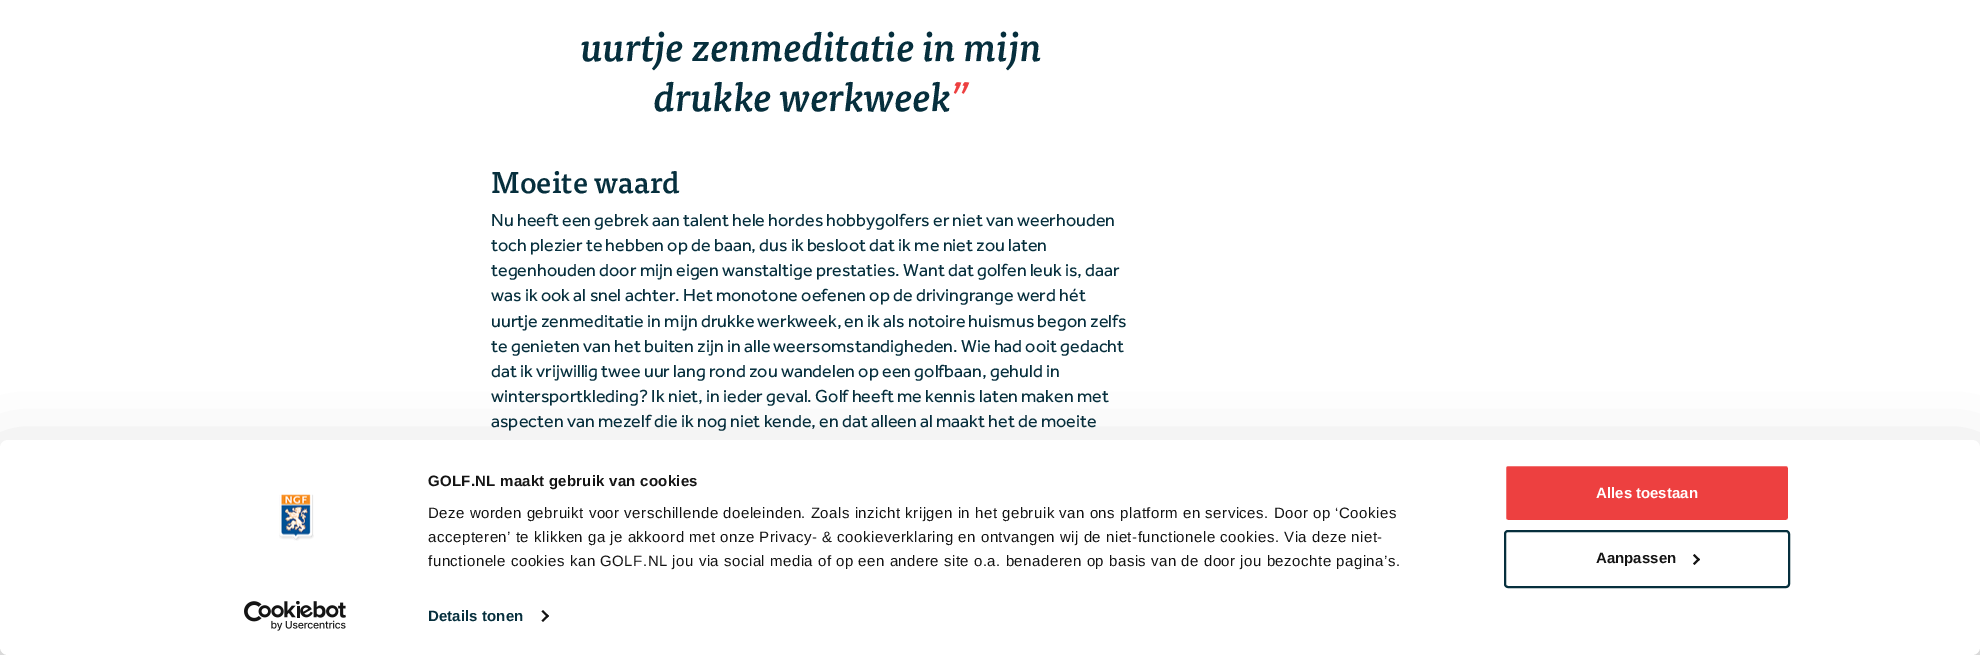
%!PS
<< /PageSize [1980 655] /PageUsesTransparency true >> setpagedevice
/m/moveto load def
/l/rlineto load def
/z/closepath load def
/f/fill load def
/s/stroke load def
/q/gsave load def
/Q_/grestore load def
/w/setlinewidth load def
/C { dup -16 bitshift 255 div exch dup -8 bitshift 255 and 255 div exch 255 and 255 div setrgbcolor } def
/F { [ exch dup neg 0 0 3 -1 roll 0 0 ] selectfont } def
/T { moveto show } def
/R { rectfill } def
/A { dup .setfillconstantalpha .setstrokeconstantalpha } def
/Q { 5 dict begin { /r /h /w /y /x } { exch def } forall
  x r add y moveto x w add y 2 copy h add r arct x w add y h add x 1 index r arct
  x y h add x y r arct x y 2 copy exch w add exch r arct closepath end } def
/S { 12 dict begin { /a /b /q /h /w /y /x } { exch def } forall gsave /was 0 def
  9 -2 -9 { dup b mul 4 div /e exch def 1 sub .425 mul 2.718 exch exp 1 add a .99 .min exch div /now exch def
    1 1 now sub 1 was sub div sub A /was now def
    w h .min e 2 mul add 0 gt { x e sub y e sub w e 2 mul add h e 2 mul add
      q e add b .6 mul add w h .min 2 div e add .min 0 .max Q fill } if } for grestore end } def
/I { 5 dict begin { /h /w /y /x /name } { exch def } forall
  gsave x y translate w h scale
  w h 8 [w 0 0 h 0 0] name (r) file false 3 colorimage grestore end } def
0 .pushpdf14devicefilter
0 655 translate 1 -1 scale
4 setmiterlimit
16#FFFFFF C
0 0 1980 655 R
/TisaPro-MediumItalic 40 F
16#062F3D C
(uurtje zenmeditatie in mijn) 581 61 T
(drukke werkweek) 654 111 T
16#ED4040 C
(”) 952 111 T
/TisaPro-Medium 30 F
16#062F3D C
(Moeite waard) 491 193 T
/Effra-Regular 18 F
(Nu heeft een gebrek aan talent hele hordes hobbygolfers er niet van weerhouden) 491 226 T
(toch plezier te hebben op de baan, dus ik besloot dat ik me niet zou laten) 491 251 T
(tegenhouden door mijn eigen wanstaltige prestaties. Want dat golfen leuk is, daar) 491 276 T
(was ik ook al snel achter. Het monotone oefenen op de drivingrange werd hét) 491 301 T
(uurtje zenmeditatie in mijn drukke werkweek, en ik als notoire huismus begon zelfs) 491 327 T
(te genieten van het buiten zijn in alle weersomstandigheden. Wie had ooit gedacht) 491 352 T
(dat ik vrijwillig twee uur lang rond zou wandelen op een golfbaan, gehuld in) 491 377 T
(wintersportkleding? Ik niet, in ieder geval. Golf heeft me kennis laten maken met) 491 402 T
(aspecten van mezelf die ik nog niet kende, en dat alleen al maakt het de moeite) 491 427 T
16#000000 C
0 470 1980 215 8 35 .3 S
16#FFFFFF C
0 440 1980 215 8 Q f
(1.rgb) 279 494 35 47 I
(2.rgb) 244 601 102 30 I
/LiberationSans-Bold 15 F
16#141414 C
428 486 m .25 0 (GOLF.NL maakt gebruik van cookies) ashow
/LiberationSans-Regular 15 F
428 518 m .5 0 (Deze worden gebruikt voor verschillende doeleinden. Zoals inzicht krijgen in het gebruik van ons platform en services. Door op ‘Cookies) ashow
428 542 m .5 0 (accepteren’ te klikken ga je akkoord met onze Privacy- & cookieverklaring en ontvangen wij de niet-functionele cookies. Via deze niet-) ashow
428 566 m .5 0 (functionele cookies kan GOLF.NL jou via social media of op een andere site o.a. benaderen op basis van de door jou bezochte pagina’s.) ashow
/LiberationSans-Bold 15 F
16#062F3D C
428 621 m .1 0 (Details tonen) ashow
16#141414 C
543 610 m 6 6 l -1.5 1.5 l -6 -6 l z f
547.5 614.5 m 1.5 1.5 l -6 6 l -1.5 -1.5 l z f
16#ED4040 C
1505 465 284 56 3 Q q f Q_
16#FFFFFF C
2 w
s
(Alles toestaan) 1596 498 T
16#062F3D C
1505 531 284 56 3 Q s
16#141414 C
(Aanpassen) 1596 563 T
1694.5 554 m 5.5 5.5 l -1.5 1.5 l -5.5 -5.5 l z f
1698.5 558 m 1.5 1.5 l -5.5 5.5 l -1.5 -1.5 l z f
.poppdf14devicefilter showpage
